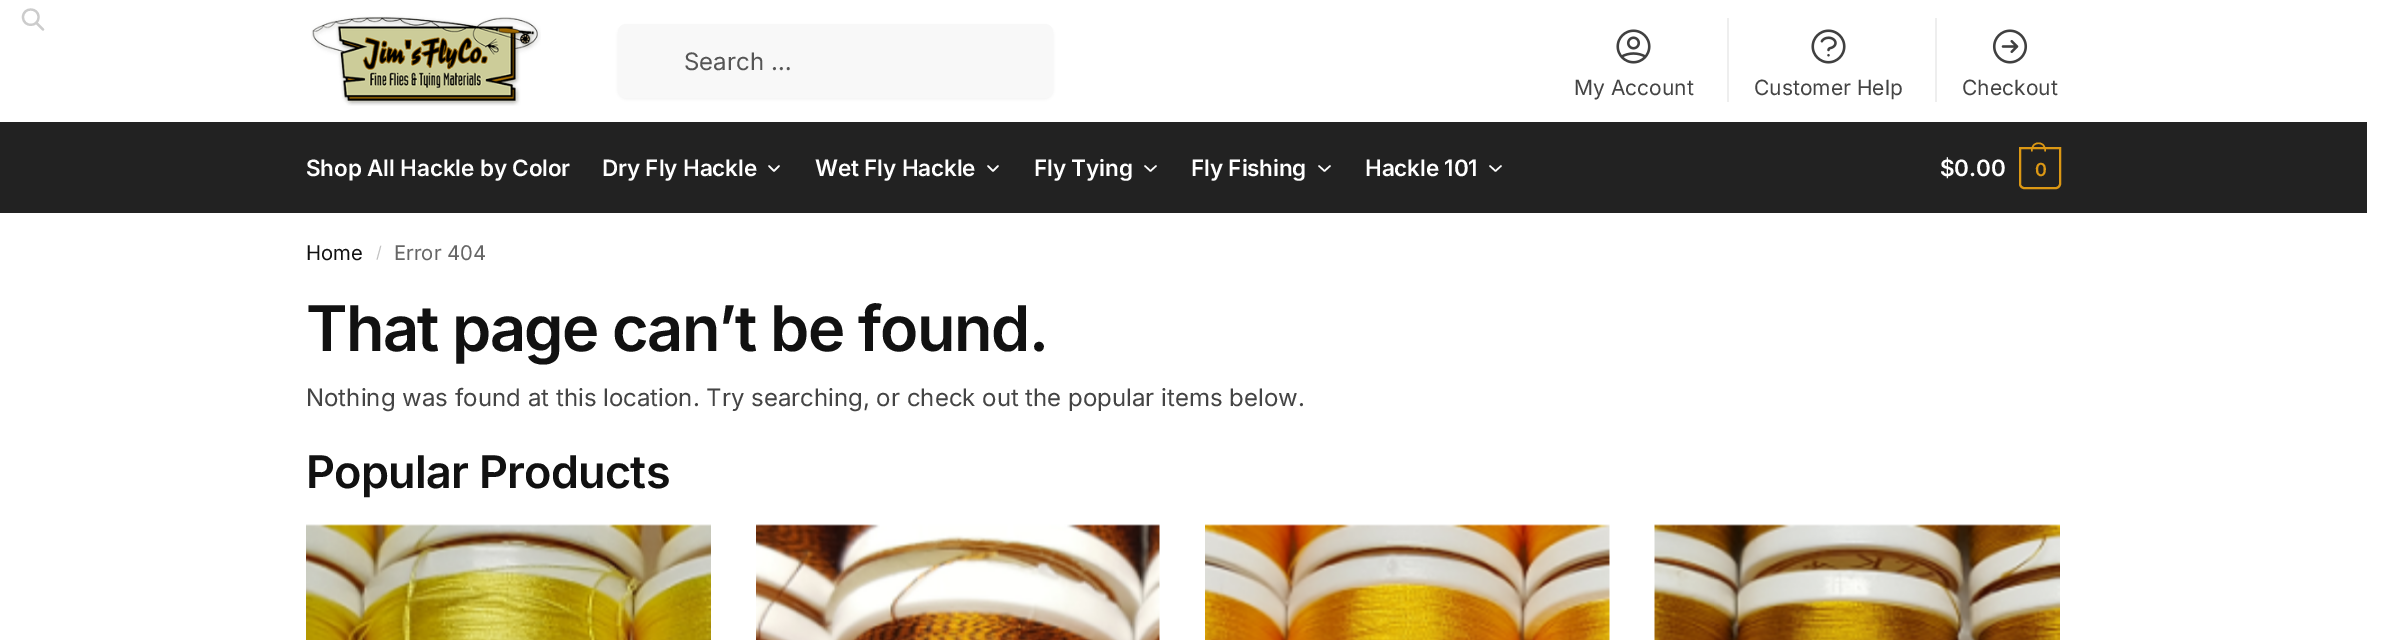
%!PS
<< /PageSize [2389 640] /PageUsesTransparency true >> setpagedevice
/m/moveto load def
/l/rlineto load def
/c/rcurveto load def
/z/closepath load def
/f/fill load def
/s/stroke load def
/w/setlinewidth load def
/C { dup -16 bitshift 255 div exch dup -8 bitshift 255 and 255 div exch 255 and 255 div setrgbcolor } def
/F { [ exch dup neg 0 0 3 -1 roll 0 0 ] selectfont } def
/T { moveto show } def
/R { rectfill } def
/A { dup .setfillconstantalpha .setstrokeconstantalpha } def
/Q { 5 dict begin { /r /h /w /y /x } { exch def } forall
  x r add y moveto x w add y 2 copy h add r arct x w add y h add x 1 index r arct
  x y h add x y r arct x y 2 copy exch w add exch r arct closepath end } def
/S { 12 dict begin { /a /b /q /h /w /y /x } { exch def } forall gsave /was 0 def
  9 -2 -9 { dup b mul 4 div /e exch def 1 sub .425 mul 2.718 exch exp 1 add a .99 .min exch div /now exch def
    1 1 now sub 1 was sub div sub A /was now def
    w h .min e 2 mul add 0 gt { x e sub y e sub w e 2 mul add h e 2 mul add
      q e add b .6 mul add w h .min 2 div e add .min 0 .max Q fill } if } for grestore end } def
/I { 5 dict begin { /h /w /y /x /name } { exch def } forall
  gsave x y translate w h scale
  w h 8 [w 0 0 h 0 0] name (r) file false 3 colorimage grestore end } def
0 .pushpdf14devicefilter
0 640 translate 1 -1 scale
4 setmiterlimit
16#FFFFFF C
0 0 2389 640 R
(1.rgb) 311 16 230 90 I
16#CCCCCC C
2.2 w
1 setlinecap
1 setlinejoin
43 29.5 m -6.5 -6.5 l 38.5 17 m 0 10.5 -15.5 10.5 -15.5 0 c 0 -10 15.5 -10 15.5 0 c z s
16#000000 C
618 26 435 73 8 1.5 .05 S
16#F8F8F8 C
618 24 435 74 8 Q f
/Inter-Regular 24 F
16#555555 C
(Search …) 684 70 T
(2.rgb) 1616 29 35 35 I
/Inter-Regular 21 F
16#444444 C
(My Account) 1574 95 T
16#EEEEEE C
1727 18 2 84 R
(3.rgb) 1811 29 35 35 I
16#444444 C
(Customer Help) 1754 95 T
16#EEEEEE C
1935 18 2 84 R
(4.rgb) 1992 29 36 35 I
16#444444 C
(Checkout) 1962 95 T
16#222222 C
0 122 2367 91 R
/Inter-SemiBold 22.5 F
16#FFFFFF C
306 176 m -.15 0 (Shop All Hackle by Color) ashow
602 176 m -.15 0 (Dry Fly Hackle) ashow
1.5 w
779 166 m -5 5 l -5 -5 l s
815 176 m -.15 0 (Wet Fly Hackle) ashow
998 166 m -5 5 l -5 -5 l s
1034 176 m -.15 0 (Fly Tying) ashow
1156 166 m -5.5 5 l -5.5 -5 l s
1191 176 m -.15 0 (Fly Fishing) ashow
1330 166 m -5.5 5 l -5.5 -5 l s
1365 176 m -.15 0 (Hackle 101) ashow
1501 166 m -5.5 5 l -5.5 -5 l s
1940 176 m -.15 0 ($0.00) ashow
16#DC9814 C
2 w
0 setlinecap
0 setlinejoin
2020 148 m 40 0 l 0 36 l 0 2 -2 4 -4 4 c -32 0 l -2 0 -4 -2 -4 -4 c z s
2038.5 142.5 m 5.5 0 7.5 4.5 7.5 9 c -15 0 l 0 -4.5 2 -9 7.5 -9 c z 2038.5 144 m 4.5 0 6 3.5 6 7.5 c -12 0 l 0 -4 1.5 -7.5 6 -7.5 c z eofill
/Inter-SemiBold 18 F
2035 176 m -1 0 (0) ashow
/Inter-Regular 20.25 F
16#111111 C
(Home) 306 260 T
/Inter-Regular 16 F
16#C2C2C2 C
(/) 376 258 T
/Inter-Regular 20.25 F
16#666666 C
(Error 404) 394 260 T
/Inter-SemiBold 63 F
16#111111 C
306 351 m -1.65 0 (That page can’t be found.) ashow
/Inter-Regular 24 F
16#444444 C
(Nothing was found at this location. Try searching, or check out the popular items below.) 306 406 T
/Inter-SemiBold 45 F
16#111111 C
306 488 m -.75 0 (Popular Products) ashow
(5.rgb) 306 524 405 116 I
(6.rgb) 756 524 404 116 I
(7.rgb) 1205 524 405 116 I
(8.rgb) 1654 524 406 116 I
.poppdf14devicefilter showpage
